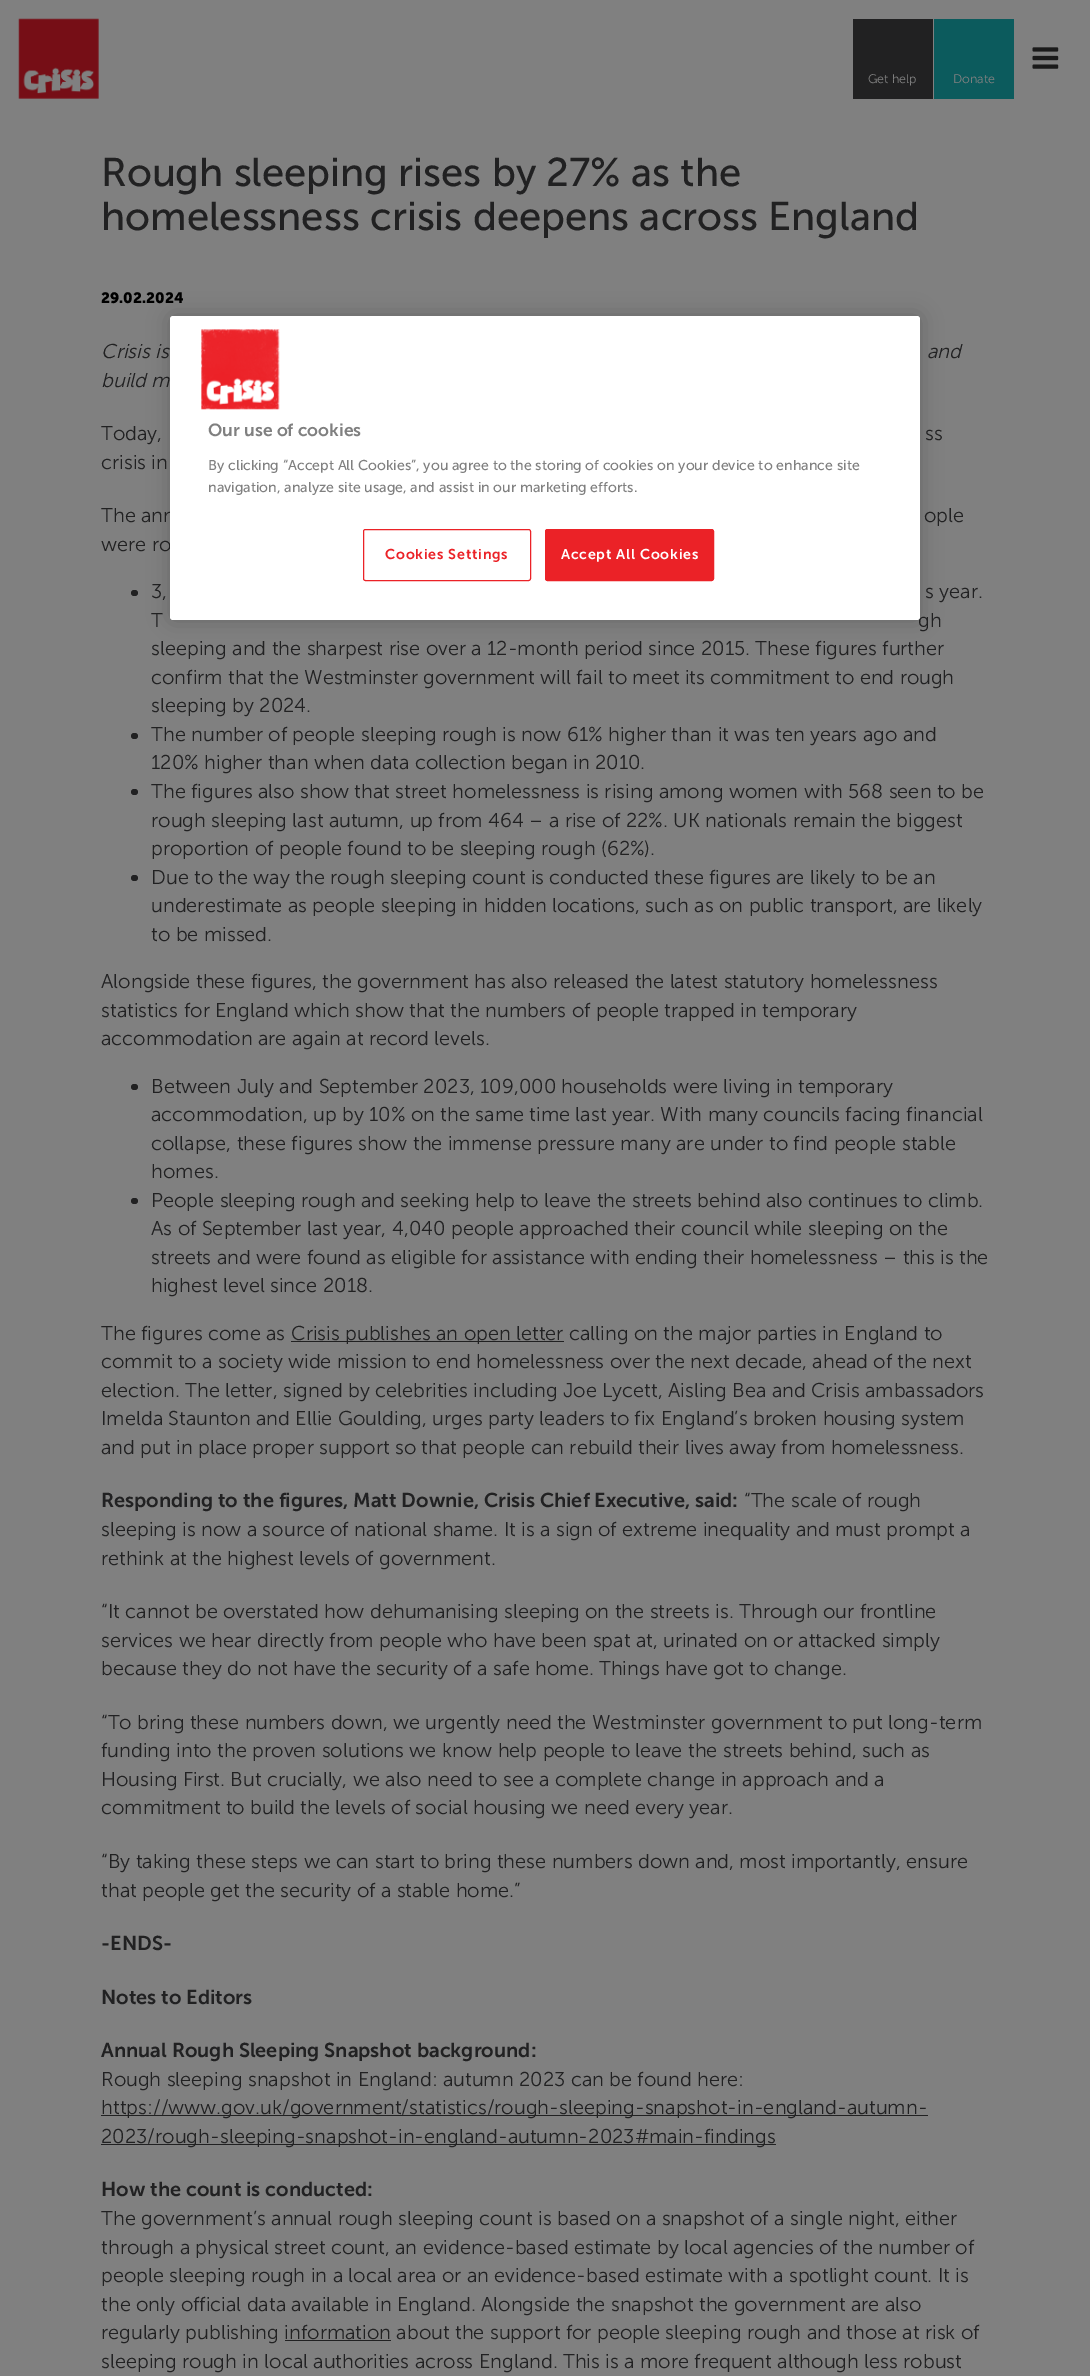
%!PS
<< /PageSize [1090 2376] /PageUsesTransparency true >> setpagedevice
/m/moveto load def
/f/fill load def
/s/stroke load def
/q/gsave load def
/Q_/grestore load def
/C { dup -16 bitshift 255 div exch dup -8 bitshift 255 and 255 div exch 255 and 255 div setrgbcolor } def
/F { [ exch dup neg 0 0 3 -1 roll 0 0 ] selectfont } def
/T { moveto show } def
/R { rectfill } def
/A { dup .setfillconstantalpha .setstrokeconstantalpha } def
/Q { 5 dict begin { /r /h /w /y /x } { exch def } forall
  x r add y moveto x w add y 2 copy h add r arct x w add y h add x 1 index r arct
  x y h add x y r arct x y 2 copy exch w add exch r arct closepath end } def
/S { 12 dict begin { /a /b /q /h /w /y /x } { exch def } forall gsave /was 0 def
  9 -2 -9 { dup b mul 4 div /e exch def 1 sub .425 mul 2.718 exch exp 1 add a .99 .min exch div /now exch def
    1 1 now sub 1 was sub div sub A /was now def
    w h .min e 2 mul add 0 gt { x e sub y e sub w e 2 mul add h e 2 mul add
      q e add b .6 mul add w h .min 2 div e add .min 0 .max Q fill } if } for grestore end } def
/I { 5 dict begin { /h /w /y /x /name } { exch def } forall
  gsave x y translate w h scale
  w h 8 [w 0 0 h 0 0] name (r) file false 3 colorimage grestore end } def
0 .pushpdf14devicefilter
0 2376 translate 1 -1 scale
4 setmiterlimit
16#808080 C
0 0 1090 2376 R
(1.rgb) 18 18 81 81 I
(2.rgb) 1032 47 27 22 I
16#212122 C
853 19 80 80 R
/MuseoSans-Light 12.5 F
16#808080 C
(Get help) 868 83 T
16#0C5B5D C
934 19 80 80 R
16#808080 C
(Donate) 953 83 T
/MuseoSans-Regular 40 F
16#212122 C
(Rough sleeping rises by 27% as the) 101 186 T
(homelessness crisis deepens across England) 101 230 T
/MuseoSans-Bold 15 F
16#000000 C
(29.02.2024) 101 303 T
/MuseoSans-LightItalic 20 F
16#212122 C
(Crisis is) 101 358 T
(and) 927 358 T
(build m) 101 387 T
/MuseoSans-Light 20 F
(Today,) 101 440 T
(ss) 925 440 T
(crisis in) 101 469 T
(The ann) 101 522 T
(ople) 924 522 T
(were ro) 101 551 T
131 590 7 6 3 Q f
(3,) 151 598 T
(s year.) 925 598 T
(T) 151 627 T
(gh) 918 627 T
(sleeping and the sharpest rise over a 12-month period since 2015. These figures further) 151 655 T
(confirm that the Westminster government will fail to meet its commitment to end rough) 151 684 T
(sleeping by 2024.) 151 712 T
131 733 7 6 3 Q f
(The number of people sleeping rough is now 61% higher than it was ten years ago and) 151 741 T
(120% higher than when data collection began in 2010.) 151 769 T
131 789 7 6 3 Q f
(The figures also show that street homelessness is rising among women with 568 seen to be) 151 798 T
(rough sleeping last autumn, up from 464 – a rise of 22%. UK nationals remain the biggest) 151 827 T
(proportion of people found to be sleeping rough \(62%\).) 151 855 T
131 875 7 6 3 Q f
(Due to the way the rough sleeping count is conducted these figures are likely to be an) 151 884 T
(underestimate as people sleeping in hidden locations, such as on public transport, are likely) 151 912 T
(to be missed.) 151 941 T
(Alongside these figures, the government has also released the latest statutory homelessness) 101 988 T
(statistics for England which show that the numbers of people trapped in temporary) 101 1017 T
(accommodation are again at record levels.) 101 1045 T
131 1084 7 6 3 Q f
(Between July and September 2023, 109,000 households were living in temporary) 151 1093 T
(accommodation, up by 10% on the same time last year. With many councils facing financial) 151 1121 T
(collapse, these figures show the immense pressure many are under to find people stable) 151 1150 T
(homes.) 151 1178 T
131 1198 7 6 3 Q f
(People sleeping rough and seeking help to leave the streets behind also continues to climb.) 151 1207 T
(As of September last year, 4,040 people approached their council while sleeping on the) 151 1235 T
(streets and were found as eligible for assistance with ending their homelessness – this is the) 151 1264 T
(highest level since 2018.) 151 1292 T
(The figures come as) 101 1340 T
291 1341 273 1 R
(Crisis publishes an open letter calling on the major parties in England to) 291 1340 T
(commit to a society wide mission to end homelessness over the next decade, ahead of the next) 101 1368 T
(election. The letter, signed by celebrities including Joe Lycett, Aisling Bea and Crisis ambassadors) 101 1397 T
(Imelda Staunton and Ellie Goulding, urges party leaders to fix England’s broken housing system) 101 1425 T
(and put in place proper support so that people can rebuild their lives away from homelessness.) 101 1454 T
/MuseoSans-SemiBold 20 F
(Responding to the figures, Matt Downie, Crisis Chief Executive, said:) 101 1507 T
/MuseoSans-Light 20 F
(“The scale of rough) 744 1507 T
(sleeping is now a source of national shame. It is a sign of extreme inequality and must prompt a) 101 1536 T
(rethink at the highest levels of government.) 101 1565 T
(“It cannot be overstated how dehumanising sleeping on the streets is. Through our frontline) 101 1618 T
(services we hear directly from people who have been spat at, urinated on or attacked simply) 101 1647 T
(because they do not have the security of a safe home. Things have got to change.) 101 1675 T
(“To bring these numbers down, we urgently need the Westminster government to put long-term) 101 1729 T
(funding into the proven solutions we know help people to leave the streets behind, such as) 101 1757 T
(Housing First. But crucially, we also need to see a complete change in approach and a) 101 1786 T
(commitment to build the levels of social housing we need every year.) 101 1814 T
(“By taking these steps we can start to bring these numbers down and, most importantly, ensure) 101 1868 T
(that people get the security of a stable home.”) 101 1897 T
/MuseoSans-SemiBold 20 F
(-ENDS-) 101 1950 T
(Notes to Editors) 101 2004 T
(Annual Rough Sleeping Snapshot background:) 101 2057 T
/MuseoSans-Light 20 F
(Rough sleeping snapshot in England: autumn 2023 can be found here:) 101 2086 T
101 2115 827 1 R
(https://www.gov.uk/government/statistics/rough-sleeping-snapshot-in-england-autumn-) 101 2114 T
101 2144 675 1 R
(2023/rough-sleeping-snapshot-in-england-autumn-2023#main-findings) 101 2143 T
/MuseoSans-SemiBold 20 F
(How the count is conducted:) 101 2196 T
/MuseoSans-Light 20 F
(The government’s annual rough sleeping count is based on a snapshot of a single night, either) 101 2225 T
(through a physical street count, an evidence-based estimate by local agencies of the number of) 101 2254 T
(people sleeping rough in a local area or an evidence-based estimate with a spotlight count. It is) 101 2282 T
(the only official data available in England. Alongside the snapshot the government are also) 101 2311 T
(regularly publishing information about the support for people sleeping rough and those at risk of) 101 2339 T
285 2340 106 1 R
(sleeping rough in local authorities across England. This is a more frequent although less robust) 101 2368 T
16#000000 C
170 316 750 304 3 11 .2 S
16#FFFFFF C
170 316 750 304 3 Q f
(3.rgb) 201 329 79 81 I
/MuseoSans-SemiBold 17.5 F
16#808080 C
(Our use of cookies) 208 436 T
/MuseoSans-Regular 14.25 F
(By clicking “Accept All Cookies”, you agree to the storing of cookies on your device to enhance site) 208 470 T
(navigation, analyze site usage, and assist in our marketing efforts.) 208 492 T
16#EB2227 C
363.5 529.5 167 51 2 Q s
/MuseoSans-SemiBold 14.25 F
385 559 m .75 0 (Cookies Settings) ashow
545.5 529.5 168 51 2 Q q f Q_
s
16#FFFFFF C
561 559 m .75 0 (Accept All Cookies) ashow
.poppdf14devicefilter showpage
